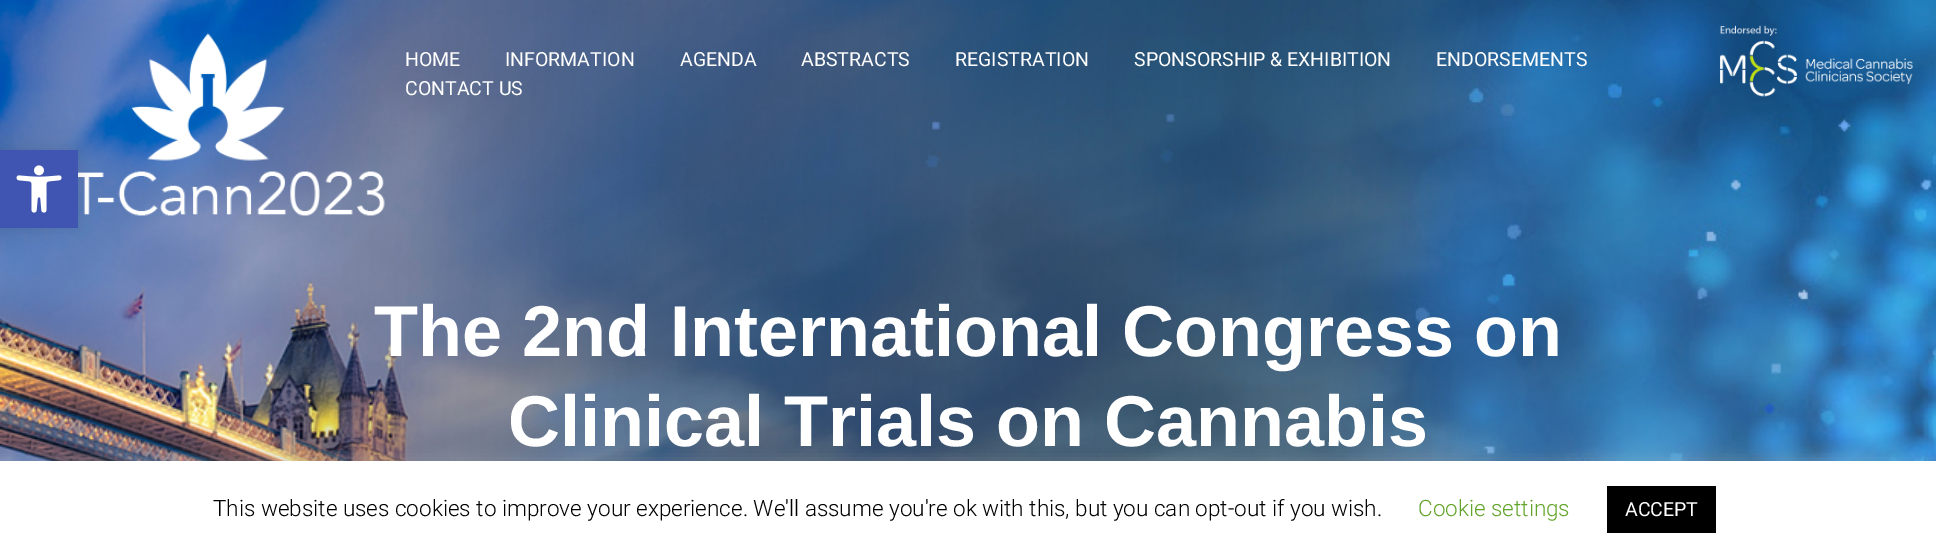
%!PS
<< /PageSize [1936 557] /PageUsesTransparency true >> setpagedevice
/C { dup -16 bitshift 255 div exch dup -8 bitshift 255 and 255 div exch 255 and 255 div setrgbcolor } def
/F { [ exch dup neg 0 0 3 -1 roll 0 0 ] selectfont } def
/T { moveto show } def
/R { rectfill } def
/A { dup .setfillconstantalpha .setstrokeconstantalpha } def
/Q { 5 dict begin { /r /h /w /y /x } { exch def } forall
  x r add y moveto x w add y 2 copy h add r arct x w add y h add x 1 index r arct
  x y h add x y r arct x y 2 copy exch w add exch r arct closepath end } def
/S { 12 dict begin { /a /b /q /h /w /y /x } { exch def } forall gsave /was 0 def
  9 -2 -9 { dup b mul 4 div /e exch def 1 sub .425 mul 2.718 exch exp 1 add a .99 .min exch div /now exch def
    1 1 now sub 1 was sub div sub A /was now def
    w h .min e 2 mul add 0 gt { x e sub y e sub w e 2 mul add h e 2 mul add
      q e add b .6 mul add w h .min 2 div e add .min 0 .max Q fill } if } for grestore end } def
/I { 5 dict begin { /h /w /y /x /name } { exch def } forall
  gsave x y translate w h scale
  w h 8 [w 0 0 h 0 0] name (r) file false 3 colorimage grestore end } def
0 .pushpdf14devicefilter
0 557 translate 1 -1 scale
4 setmiterlimit
16#FFFFFF C
0 0 1936 557 R
(2.rgb) 0 0 1936 461 I
(3.rgb) 78 33 307 183 I
16#000000 C
0 150 78 78 0 7.5 .1 S
16#4054B2 C
0 150 78 78 R
(1.rgb) 16 165 46 48 I
/Roboto-Regular 19.5 F
16#FFFFFF C
(HOME) 405 66 T
(INFORMATION) 505 66 T
(AGENDA) 680 66 T
(ABSTRACTS) 801 66 T
(REGISTRATION) 955 66 T
(SPONSORSHIP & EXHIBITION) 1134 66 T
(ENDORSEMENTS) 1436 66 T
(CONTACT US) 405 95 T
(4.rgb) 1720 25 193 72 I
/LiberationSans-Bold 72 F
(The 2nd International Congress on) 374 356 T
(Clinical Trials on Cannabis) 508 446 T
16#ACABAB C
0 459 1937 98 0 7.5 .3 S
16#FFFFFF C
0 461 1936 96 R
/Roboto-Light 22.5 F
16#000000 C
(This website uses cookies to improve your experience. We'll assume you're ok with this, but you can opt-out if you wish.) 213 516 T
16#62A329 C
(Cookie settings) 1418 516 T
16#000000 C
1607 486 109 47 R
/Roboto-Regular 19.5 F
16#FFFFFF C
(ACCEPT) 1625 516 T
.poppdf14devicefilter showpage
